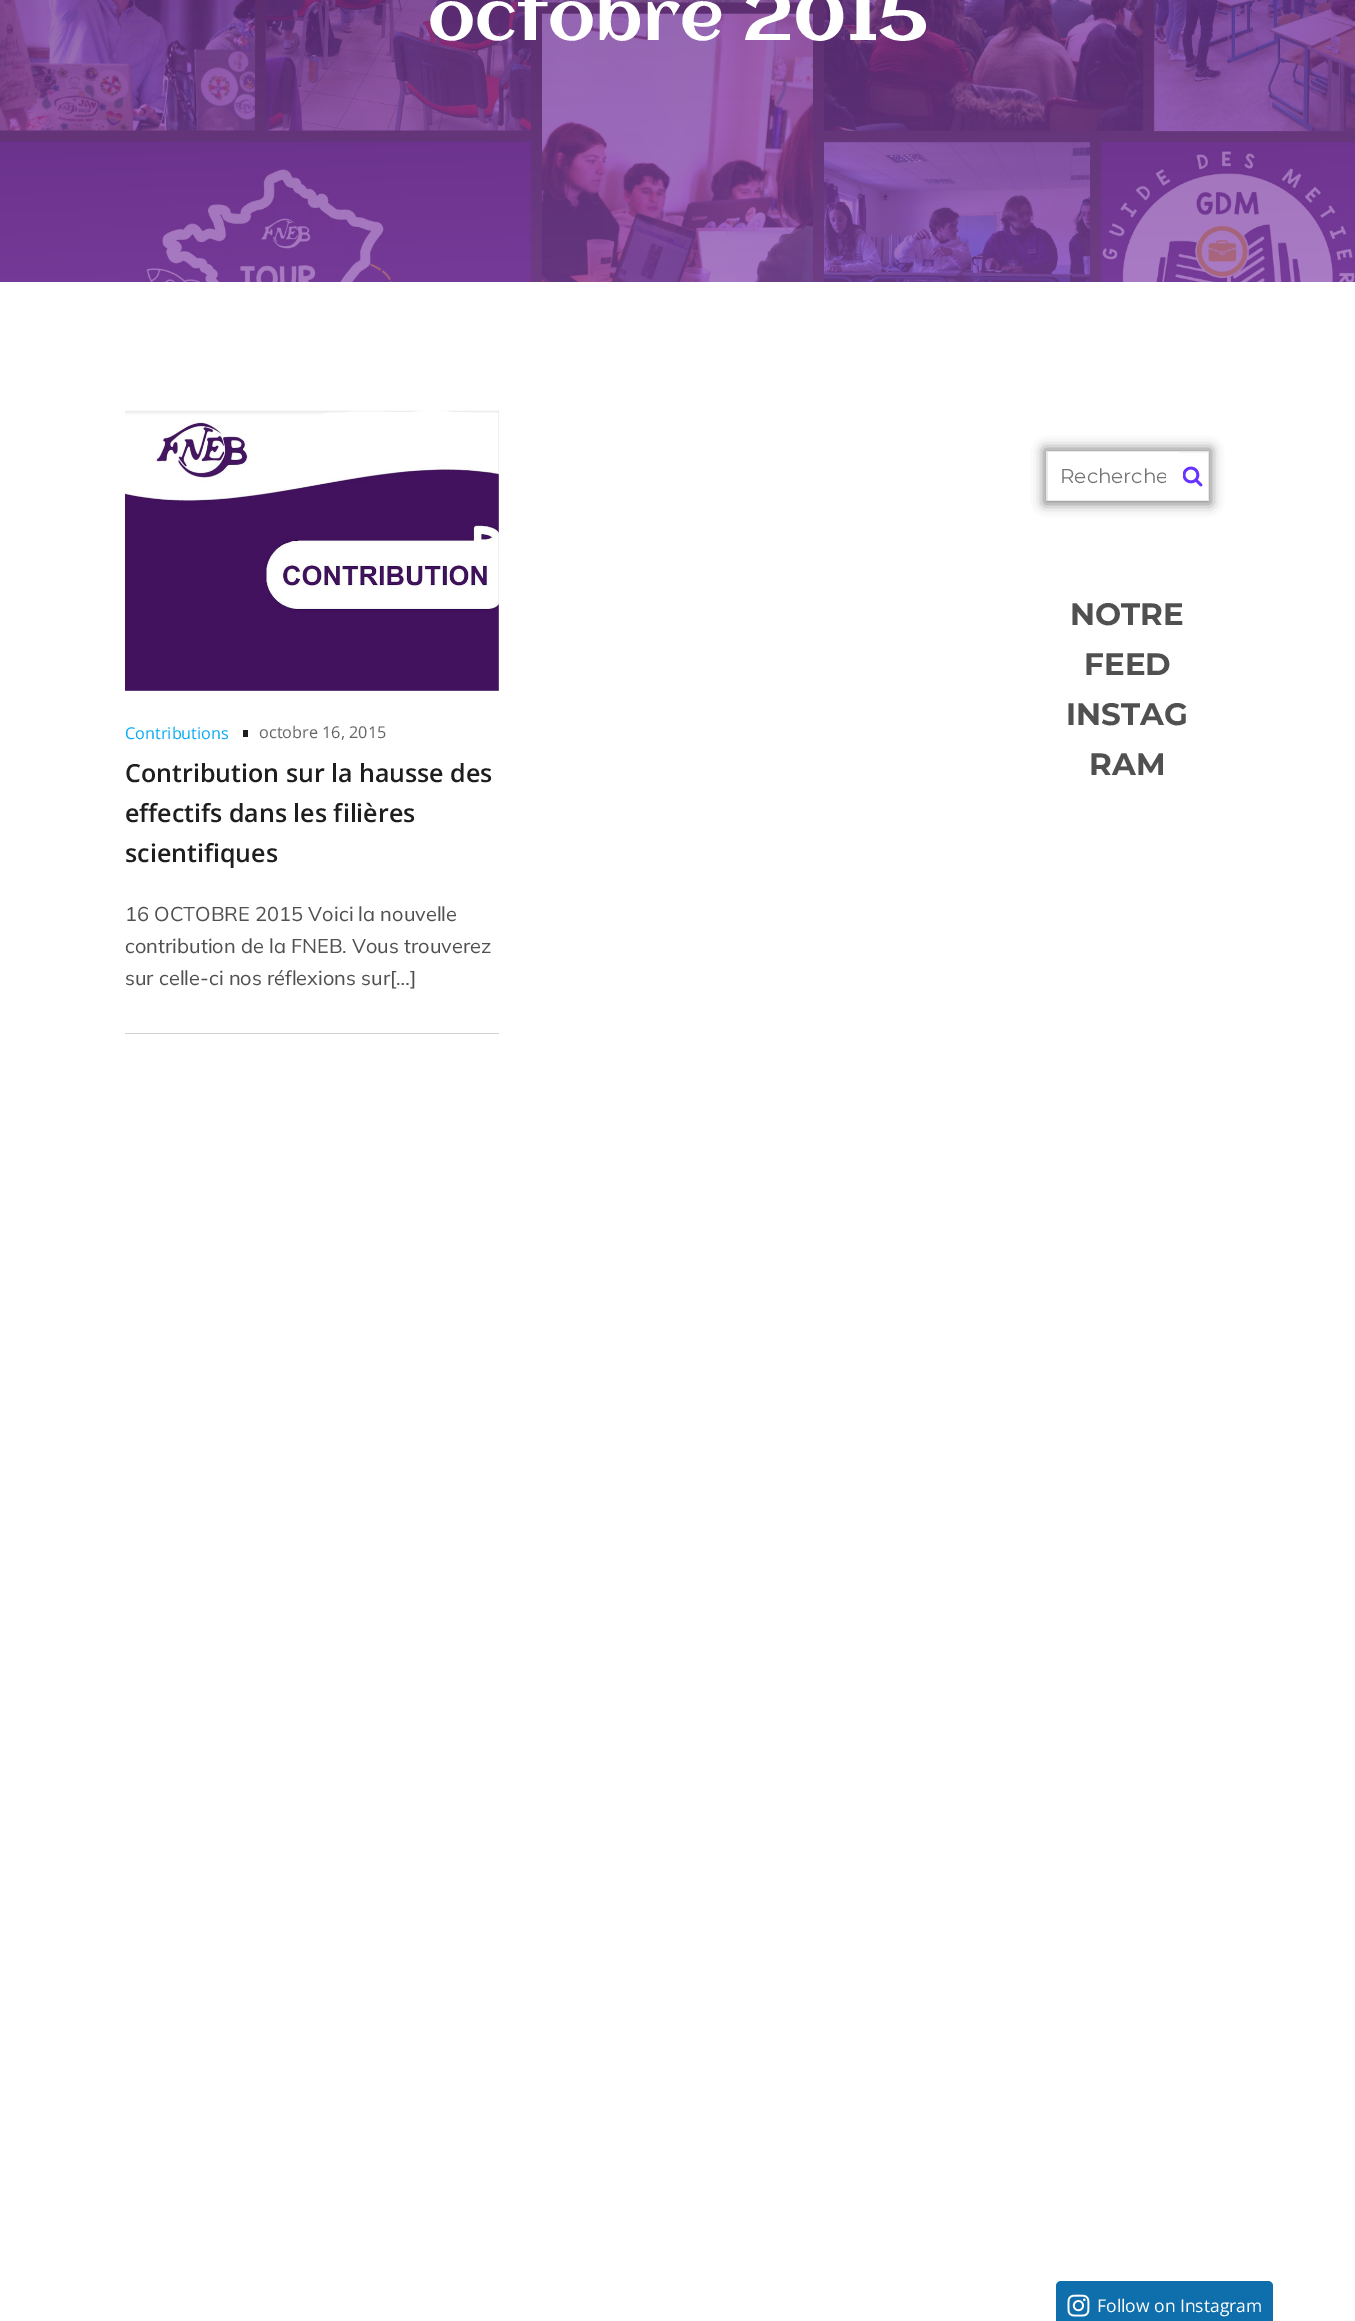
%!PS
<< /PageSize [1355 2321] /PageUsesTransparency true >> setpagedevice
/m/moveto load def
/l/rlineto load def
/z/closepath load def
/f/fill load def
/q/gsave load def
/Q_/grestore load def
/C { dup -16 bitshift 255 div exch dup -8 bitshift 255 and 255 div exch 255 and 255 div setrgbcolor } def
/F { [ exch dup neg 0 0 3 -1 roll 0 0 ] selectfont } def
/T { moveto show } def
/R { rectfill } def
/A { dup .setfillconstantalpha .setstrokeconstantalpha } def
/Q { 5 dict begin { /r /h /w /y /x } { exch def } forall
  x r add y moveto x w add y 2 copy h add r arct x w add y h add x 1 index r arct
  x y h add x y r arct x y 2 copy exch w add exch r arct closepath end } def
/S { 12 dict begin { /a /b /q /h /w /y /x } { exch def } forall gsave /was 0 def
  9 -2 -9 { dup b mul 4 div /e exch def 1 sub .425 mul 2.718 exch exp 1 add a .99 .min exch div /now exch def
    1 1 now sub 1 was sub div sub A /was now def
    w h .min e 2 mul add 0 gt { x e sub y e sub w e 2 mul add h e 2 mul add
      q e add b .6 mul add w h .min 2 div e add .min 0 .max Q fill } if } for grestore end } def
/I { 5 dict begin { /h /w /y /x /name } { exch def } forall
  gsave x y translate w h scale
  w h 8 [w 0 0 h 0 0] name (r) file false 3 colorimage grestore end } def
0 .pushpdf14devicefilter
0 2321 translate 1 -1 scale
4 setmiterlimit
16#FFFFFF C
0 0 1355 2321 R
(1.rgb) 0 0 1355 282 I
/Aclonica-Regular 67.5 F
(octobre 2015) 428 40 T
16#CCCCCC C
125 411 374 280 R
(2.rgb) 125 410 374 281 I
/OpenSans-Regular 16.25 F
16#03A9F4 C
(Contributions) 125 739 T
16#1E1E1E C
243 730 5 7 R
16#656565 C
(octobre 16, 2015) 259 738 T
/OpenSans-SemiBold 25 F
16#1E1E1E C
(Contribution sur la hausse des) 125 782 T
(effectifs dans les filières) 125 822 T
(scientifiques) 125 862 T
/Mulish-Regular 20 F
16#505050 C
(16 OCTOBRE 2015 Voici la nouvelle) 125 921 T
(contribution de la FNEB. Vous trouverez) 125 953 T
(sur celle-ci nos réflexions sur[…]) 125 985 T
16#D2D2D2 C
125 1033 374 1 R
16#000000 C
1044 449 167 55 0 6 .5 S
16#FFFFFF C
1046 451 163 50 R
16#E9E9E9 C
1046 451 m 133 0 l 0 1 l -131 0 l z f
1179 501 m -133 0 l 2 -1 l 131 0 l z f
0.1 A
16#1E1E1E C
1046 501 m 0 -50 l 2 1 l 0 48 l z f
q
1060 465 106 24 rectclip
/Montserrat-Regular 20 F
1 A
16#757575 C
(Recherche) 1060 483 T
Q_
1 A
16#E9E9E9 C
1179 451 m 30 0 l -1.5 1.5 l -28.5 0 l z f
0.1 A
16#1E1E1E C
1209 451 m 0 50 l -1 -1 l 0 -48 l z f
1 A
16#E9E9E9 C
1209 501 m -30 0 l 0 -1 l 28.5 0 l z f
(3.rgb) 1183 466 20 21 I
/Montserrat-Bold 31 F
16#505050 C
(NOTRE) 1070 625 T
(FEED) 1084 675 T
(INSTAG) 1066 725 T
(RAM) 1089 775 T
16#0F6FAD C
1056 2281 217 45 5 Q f
(4.rgb) 1067 2294 23 23 I
/OpenSans-Regular 17.5 F
16#FFFFFF C
(Follow on Instagram) 1097 2312 T
.poppdf14devicefilter showpage
